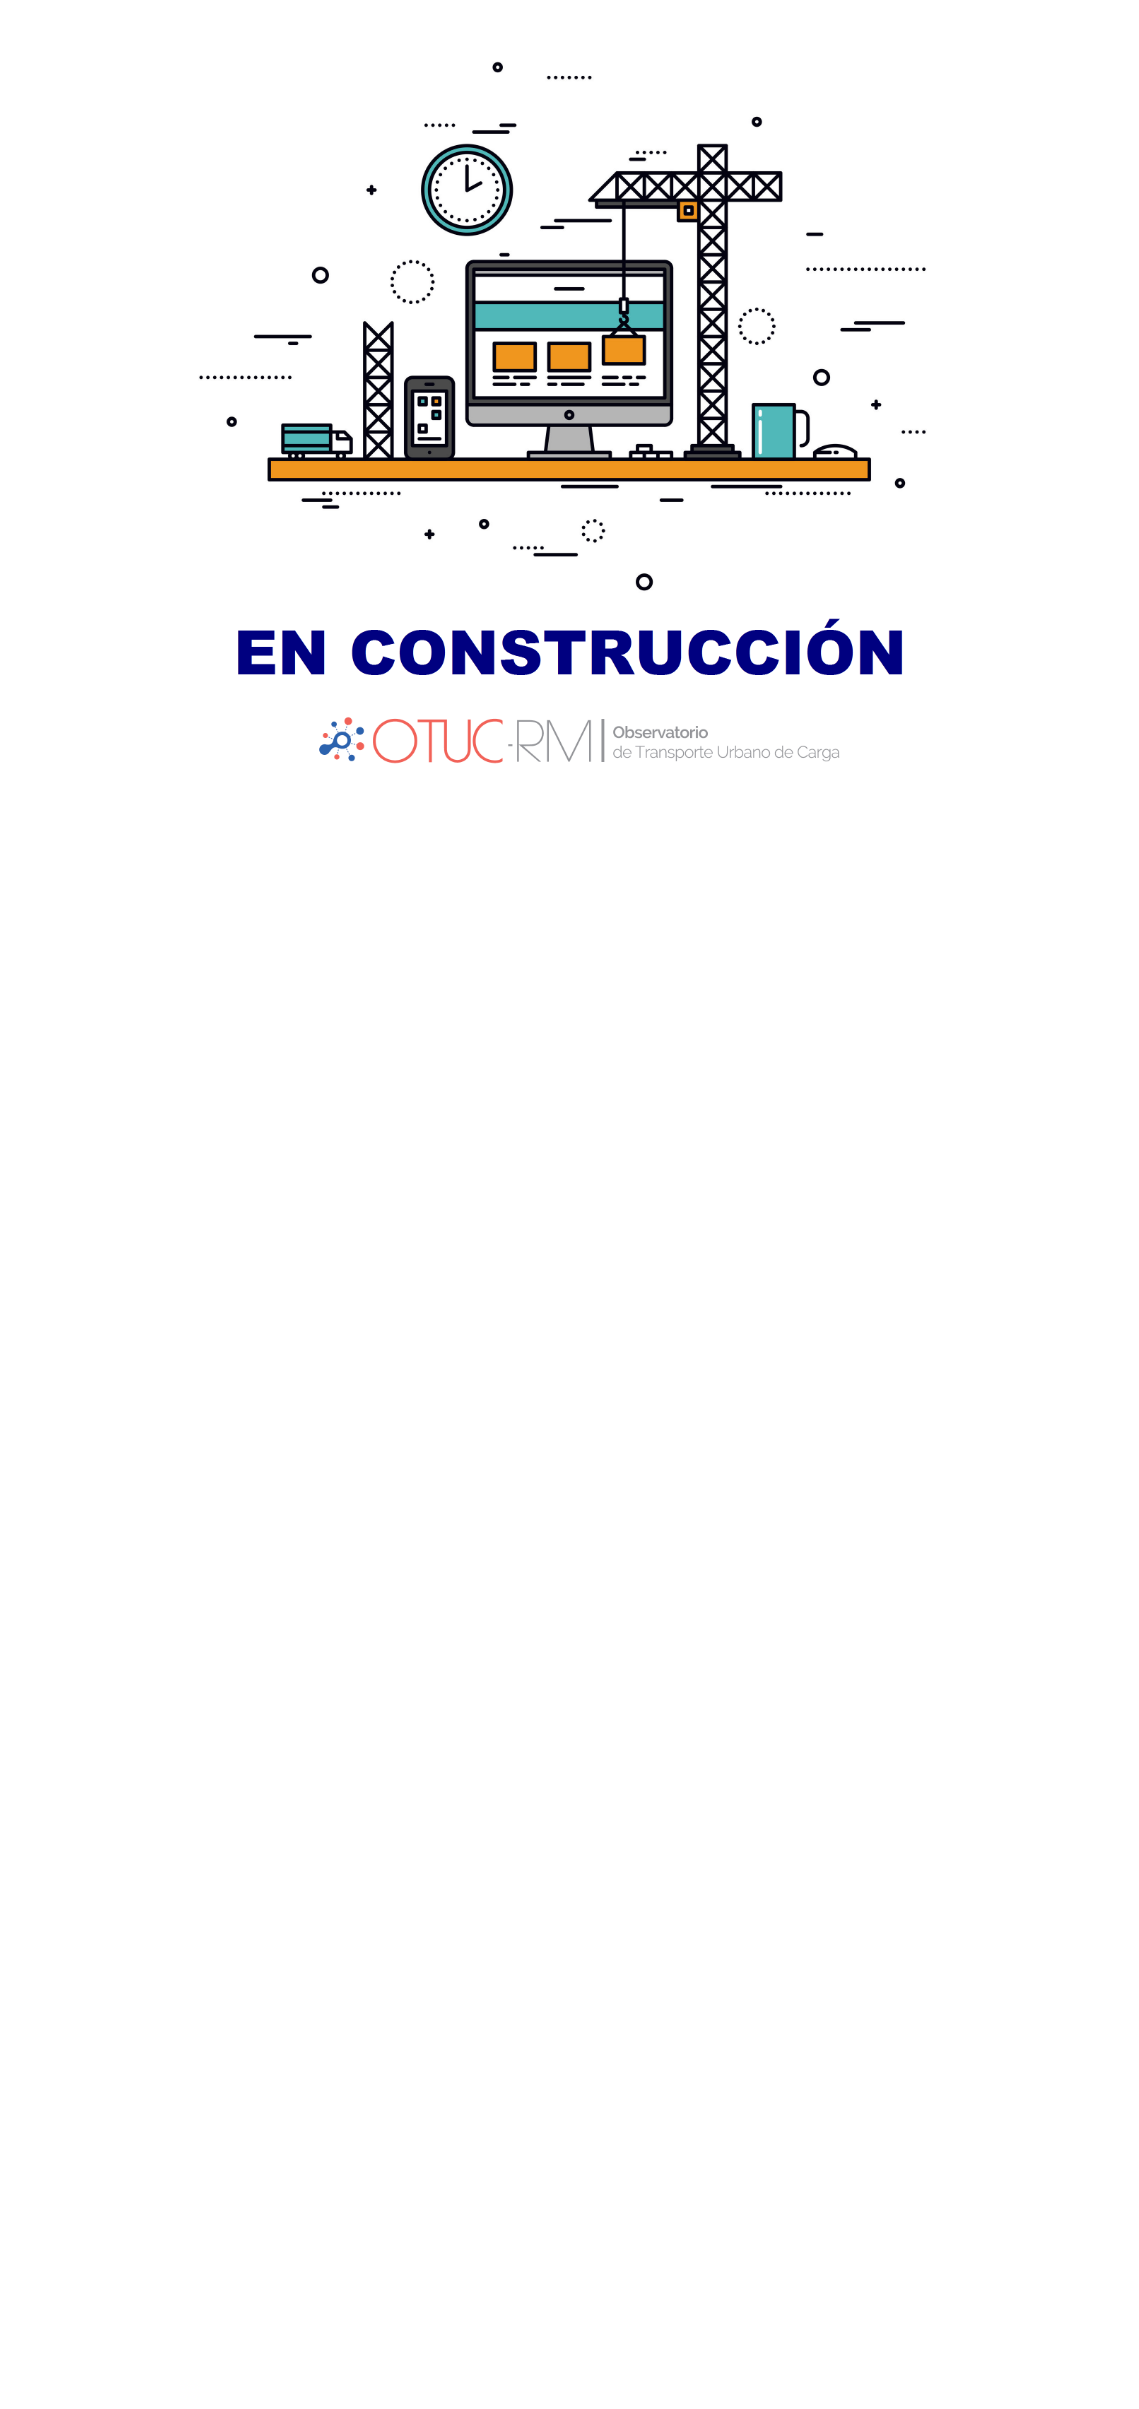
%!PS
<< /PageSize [1139 2409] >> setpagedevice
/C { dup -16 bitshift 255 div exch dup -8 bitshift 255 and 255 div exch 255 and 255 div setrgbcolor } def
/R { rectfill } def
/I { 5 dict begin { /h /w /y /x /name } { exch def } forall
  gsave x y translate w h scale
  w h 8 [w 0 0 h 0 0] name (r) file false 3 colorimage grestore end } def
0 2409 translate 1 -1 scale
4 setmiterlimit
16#FFFFFF C
0 0 1139 2409 R
(1.rgb) 198 61 729 703 I
showpage
